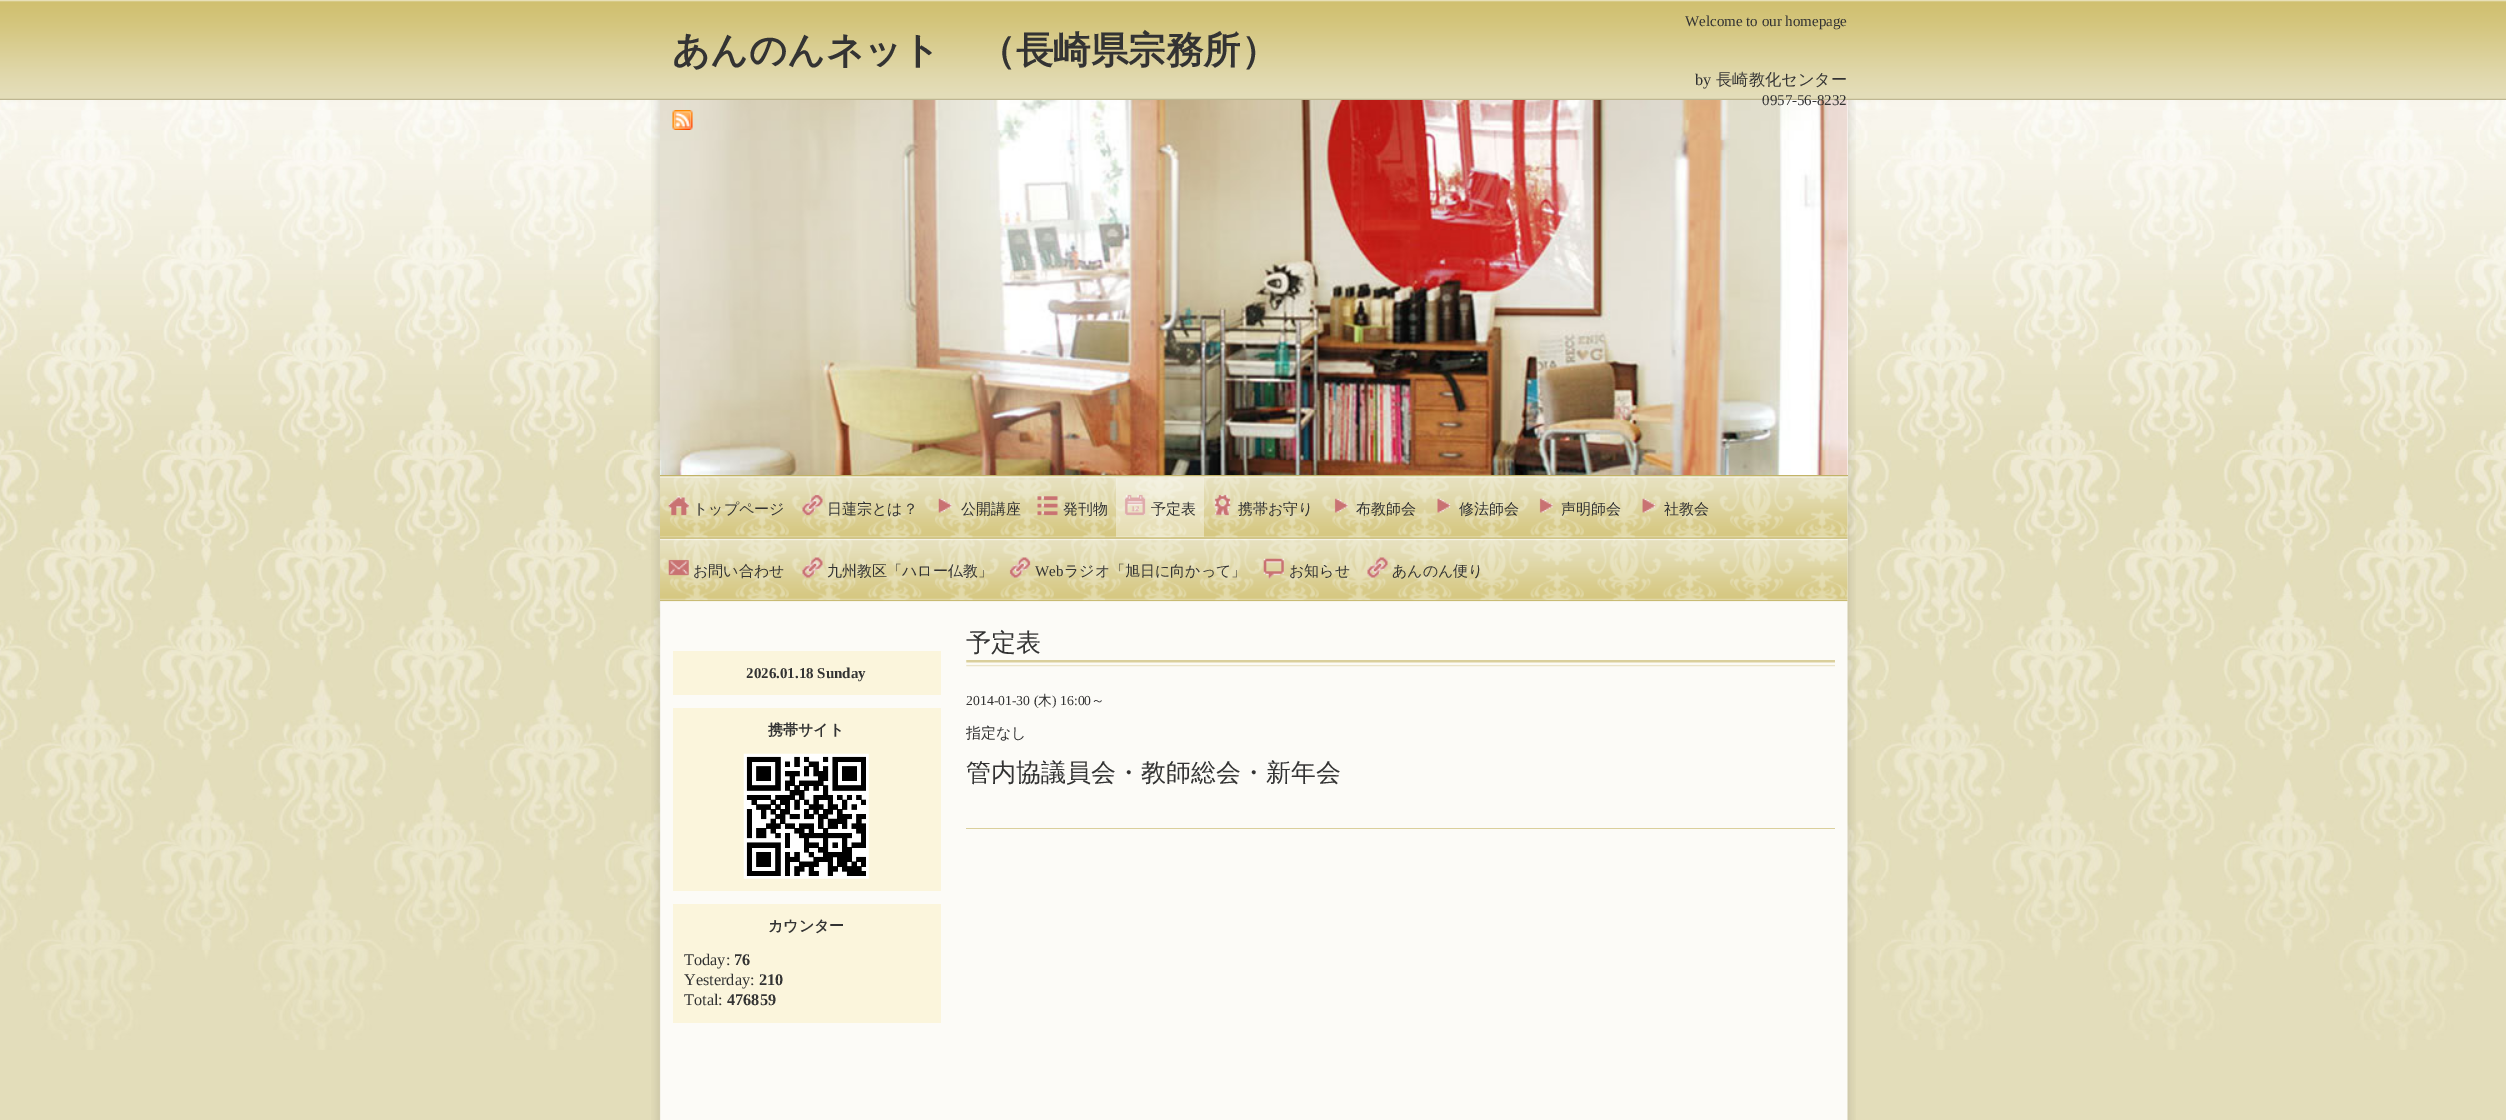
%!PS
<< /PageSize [2506 1120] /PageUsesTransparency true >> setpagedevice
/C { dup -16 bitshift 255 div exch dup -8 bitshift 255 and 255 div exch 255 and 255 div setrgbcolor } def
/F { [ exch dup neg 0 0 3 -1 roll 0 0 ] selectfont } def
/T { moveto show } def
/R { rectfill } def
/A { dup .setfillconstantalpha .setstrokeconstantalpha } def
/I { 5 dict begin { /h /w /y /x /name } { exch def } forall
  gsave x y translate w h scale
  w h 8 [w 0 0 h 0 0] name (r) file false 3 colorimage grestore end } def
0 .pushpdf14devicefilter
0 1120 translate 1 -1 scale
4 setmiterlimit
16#E3DDBA C
0 0 2506 1120 R
(1.rgb) 0 100 2506 950 I
(2.rgb) 0 0 2506 100 I
/LiberationSerif-Regular 15 F
16#333333 C
(Welcome to our homepage) 1685 26 T
/WenQuanYiZenHei-Bold 37.5 F
(あんのんネット　（長崎県宗務所）) 672 63 T
/LiberationSerif-Regular 16.25 F
(by) 1695 85 T
/WenQuanYiZenHei-Medium 16.25 F
(長崎教化センター) 1716 85 T
(4.rgb) 651 100 1205 1020 I
16#FFFFFF C
1847 100 1 375 R
(5.rgb) 660 100 1188 375 I
/LiberationSerif-Regular 15 F
16#333333 C
(0957-56-8232) 1762 105 T
(3.rgb) 672 110 21 20 I
(6.rgb) 660 476 1188 126 I
16#C2B367 C
660 475 1188 1 R
(7.rgb) 668 496 21 20 I
/WenQuanYiZenHei-Medium 15 F
16#333333 C
(トップページ) 693 514 T
(8.rgb) 802 494 21 22 I
(日蓮宗とは？) 827 514 T
(9.rgb) 938 498 14 15 I
(公開講座) 961 514 T
(10.rgb) 1037 496 21 20 I
(発刊物) 1063 514 T
(11.rgb) 1124 494 22 22 I
0.4 A
16#FFFFFF C
1116 478 88 59 R
1 A
16#333333 C
(予定表) 1151 514 T
(12.rgb) 1214 494 17 22 I
(携帯お守り) 1238 514 T
(13.rgb) 1334 498 14 15 I
(布教師会) 1356 514 T
(14.rgb) 1437 498 14 15 I
(修法師会) 1459 514 T
(15.rgb) 1539 498 14 15 I
(声明師会) 1561 514 T
(16.rgb) 1642 498 14 15 I
(社教会) 1664 514 T
(17.rgb) 668 559 21 17 I
(お問い合わせ) 693 576 T
(18.rgb) 802 557 21 21 I
(九州教区「ハロー仏教」) 827 576 T
(19.rgb) 1009 557 22 21 I
/LiberationSerif-Regular 15 F
(Web) 1035 576 T
/WenQuanYiZenHei-Medium 15 F
(ラジオ「旭日に向かって」) 1064 576 T
(20.rgb) 1263 558 21 21 I
(お知らせ) 1289 576 T
(21.rgb) 1367 557 21 21 I
(あんのん便り) 1392 576 T
16#FBF5DC C
673 651 268 44 R
/LiberationSerif-Bold 15 F
16#333333 C
(2026.01.18 Sunday) 746 678 T
16#FBF5DC C
673 708 268 183 R
/WenQuanYiZenHei-Bold 15 F
16#333333 C
(携帯サイト) 768 735 T
(22.rgb) 743 753 126 126 I
16#FBF5DC C
673 904 268 119 R
16#333333 C
(カウンター) 768 931 T
/LiberationSerif-Regular 16.25 F
(Today:) 684 965 T
/LiberationSerif-Bold 16.25 F
(76) 734 965 T
/LiberationSerif-Regular 16.25 F
(Yesterday:) 684 985 T
/LiberationSerif-Bold 16.25 F
(210) 759 985 T
/LiberationSerif-Regular 16.25 F
(Total:) 684 1005 T
/LiberationSerif-Bold 16.25 F
(476859) 727 1005 T
(23.rgb) 966 660 869 7 I
/WenQuanYiZenHei-Medium 25 F
(予定表) 966 651 T
16#DACF9C C
966 828 869 1 R
/LiberationSerif-Regular 13.75 F
16#333333 C
(2014-01-30 \() 966 705 T
/WenQuanYiZenHei-Medium 13.75 F
(木) 1038 705 T
/LiberationSerif-Regular 13.75 F
(\) 16:00) 1052 705 T
/WenQuanYiZenHei-Medium 13.75 F
(～) 1091 705 T
/WenQuanYiZenHei-Medium 15 F
(指定なし) 966 738 T
/WenQuanYiZenHei-Medium 25 F
(管内協議員会・教師総会・新年会) 966 781 T
.poppdf14devicefilter showpage
